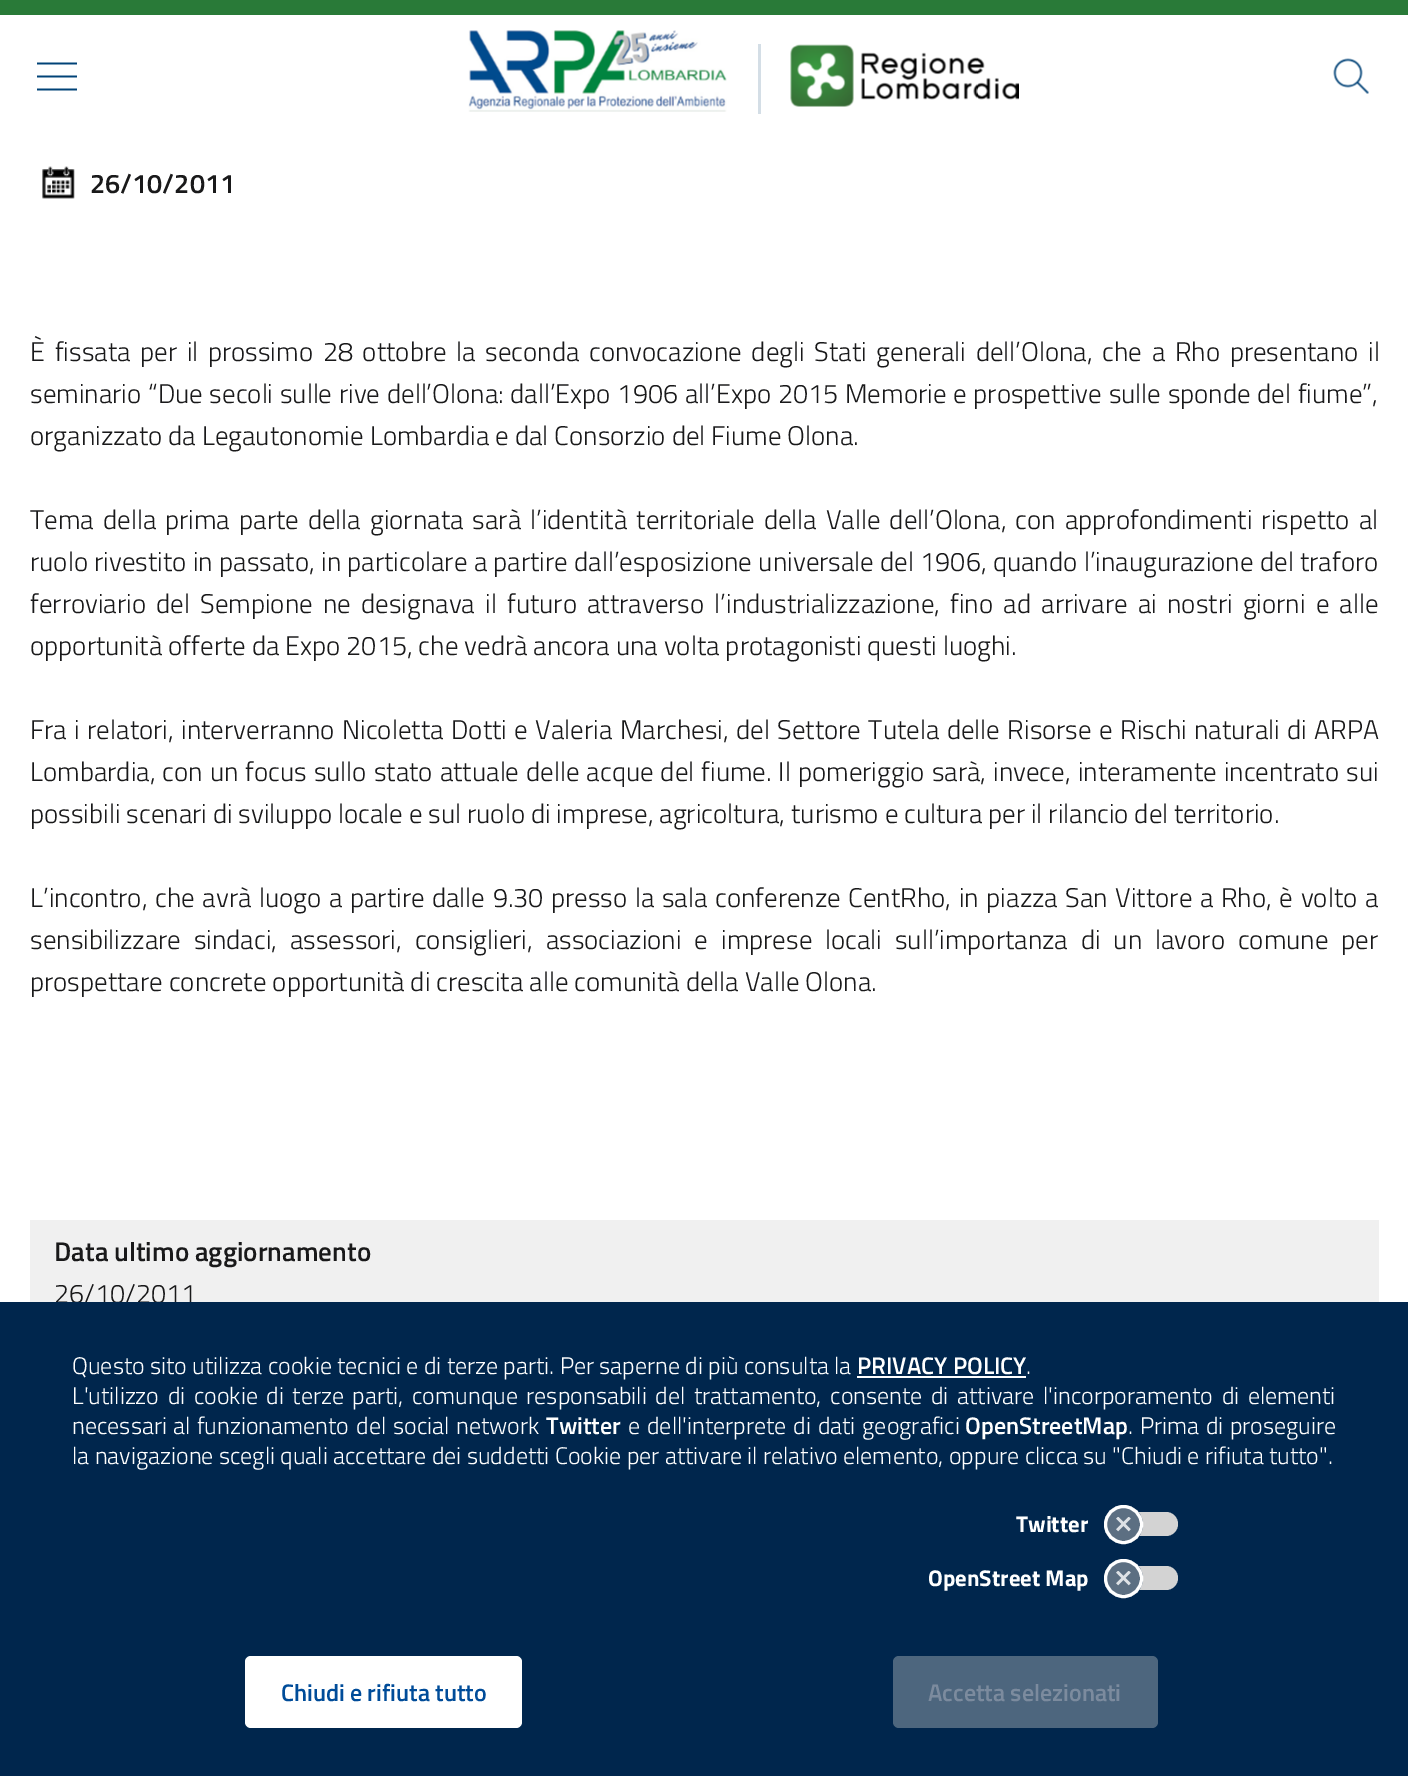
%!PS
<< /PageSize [1408 1776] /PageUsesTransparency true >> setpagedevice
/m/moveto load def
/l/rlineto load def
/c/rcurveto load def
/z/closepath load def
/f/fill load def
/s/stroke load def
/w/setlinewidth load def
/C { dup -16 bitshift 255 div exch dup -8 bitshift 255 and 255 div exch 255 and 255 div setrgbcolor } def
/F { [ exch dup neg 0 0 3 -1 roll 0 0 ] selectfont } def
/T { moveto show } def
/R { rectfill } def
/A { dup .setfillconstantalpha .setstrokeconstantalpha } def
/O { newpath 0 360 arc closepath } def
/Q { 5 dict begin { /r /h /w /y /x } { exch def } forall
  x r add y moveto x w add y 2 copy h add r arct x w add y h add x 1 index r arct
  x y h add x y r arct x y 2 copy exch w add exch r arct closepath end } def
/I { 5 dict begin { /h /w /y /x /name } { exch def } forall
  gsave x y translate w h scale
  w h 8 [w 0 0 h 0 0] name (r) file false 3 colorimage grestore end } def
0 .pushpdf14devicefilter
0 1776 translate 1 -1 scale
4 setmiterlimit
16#FFFFFF C
0 0 1408 1776 R
16#297A38 C
0 0 1408 15 R
(1.rgb) 37 62 40 29 I
(2.rgb) 468 30 259 82 I
16#D4DEE6 C
758 44 3 70 R
(3.rgb) 790 44 229 63 I
(4.rgb) 1333 58 36 36 I
(5.rgb) 42 166 33 33 I
/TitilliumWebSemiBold-SemiBold 27 F
16#19191A C
(26/10/2011) 90 193 T
/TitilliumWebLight-Light 27 F
30 361 m 3.75 0 32 (È fissata per il prossimo 28 ottobre la seconda convocazione degli Stati generali dell’Olona, che a Rho presentano il) widthshow
30 403 m .8 0 32 (seminario “Due secoli sulle rive dell’Olona: dall’Expo 1906 all’Expo 2015 Memorie e prospettive sulle sponde del fiume”,) widthshow
(organizzato da Legautonomie Lombardia e dal Consorzio del Fiume Olona.) 30 445 T
30 529 m 3.1 0 32 (Tema della prima parte della giornata sarà l’identità territoriale della Valle dell’Olona, con approfondimenti rispetto al) widthshow
30 571 m .4 0 32 (ruolo rivestito in passato, in particolare a partire dall’esposizione universale del 1906, quando l’inaugurazione del traforo) widthshow
30 613 m 4.25 0 32 (ferroviario del Sempione ne designava il futuro attraverso l’industrializzazione, fino ad arrivare ai nostri giorni e alle) widthshow
(opportunità offerte da Expo 2015, che vedrà ancora una volta protagonisti questi luoghi.) 30 655 T
30 739 m 1.5 0 32 (Fra i relatori, interverranno Nicoletta Dotti e Valeria Marchesi, del Settore Tutela delle Risorse e Rischi naturali di ARPA) widthshow
30 781 m 1.1 0 32 (Lombardia, con un focus sullo stato attuale delle acque del fiume. Il pomeriggio sarà, invece, interamente incentrato sui) widthshow
(possibili scenari di sviluppo locale e sul ruolo di imprese, agricoltura, turismo e cultura per il rilancio del territorio.) 30 823 T
30 907 m 1.65 0 32 (L’incontro, che avrà luogo a partire dalle 9.30 presso la sala conferenze CentRho, in piazza San Vittore a Rho, è volto a) widthshow
30 949 m 7 0 32 (sensibilizzare sindaci, assessori, consiglieri, associazioni e imprese locali sull’importanza di un lavoro comune per) widthshow
(prospettare concrete opportunità di crescita alle comunità della Valle Olona.) 30 991 T
16#F0F0F0 C
30 1220 1349 82 R
/TitilliumWebSemiBold-SemiBold 27 F
16#19191A C
(Data ultimo aggiornamento) 54 1261 T
/TitilliumWebLight-Light 27 F
(26/10/2011) 54 1303 T
16#00264D C
0 1302 1408 474 R
/TitilliumWebLight-Light 24 F
16#FFFFFF C
(Questo sito utilizza cookie tecnici e di terze parti. Per saperne di più consulta la) 72 1374 T
/TitilliumWebSemiBold-SemiBold 24 F
(PRIVACY POLICY) 857 1374 T
857 1376 169 2 R
/TitilliumWebLight-Light 24 F
(.) 1026 1374 T
72 1404 m 3.25 0 32 (L'utilizzo di cookie di terze parti, comunque responsabili del trattamento, consente di attivare l'incorporamento di elementi) widthshow
72 1434 m 1 0 32 (necessari al funzionamento) widthshow
356 1434 m 1.5 0 32 (del social network) widthshow
/TitilliumWebSemiBold-SemiBold 24 F
(Twitter) 546 1434 T
/TitilliumWebLight-Light 24 F
628 1434 m 1.5 0 32 (e dell'interprete di dati geografici) widthshow
/TitilliumWebSemiBold-SemiBold 24 F
(OpenStreetMap) 965 1434 T
/TitilliumWebLight-Light 24 F
(.) 1128 1434 T
1140 1434 m 1 0 32 (Prima di proseguire) widthshow
(la navigazione scegli quali accettare dei suddetti Cookie per attivare il relativo elemento, oppure clicca su "Chiudi e rifiuta tutto".) 72 1464 T
/TitilliumWeb-Bold 22.75 F
(Twitter) 1016 1532 T
16#D3D3D3 C
1109 1512 69 24 12 Q f
16#5C6F82 C
1123.5 1524.5 19.5 O f
(6.rgb) 1116 1517 15 15 I
16#FFFFFF C
3 w
1123.5 1524.5 18 O s
(OpenStreet Map) 928 1586 T
16#D3D3D3 C
1109 1566 69 24 12 Q f
16#5C6F82 C
1123.5 1578.5 19.5 O f
(6.rgb) 1116 1571 15 15 I
16#FFFFFF C
1123.5 1578.5 18 O s
245 1656 277 72 6 Q f
0.15 A
250 1658 m 266 0 l 3 0 6 2 6 6 c 0 -2 l 0 -3 -3 -6 -6 -6 c -265 0 l -3 0 -5 2 -6 4 c 1 -1 3 -2 5 -2 c z f
/TitilliumWebSemiBold-SemiBold 24 F
1 A
16#004C99 C
(Chiudi e rifiuta tutto) 281 1701 T
16#4D667E C
893 1656 265 72 6 Q f
16#7C8B9E C
(Accetta selezionati) 928 1701 T
.poppdf14devicefilter showpage
